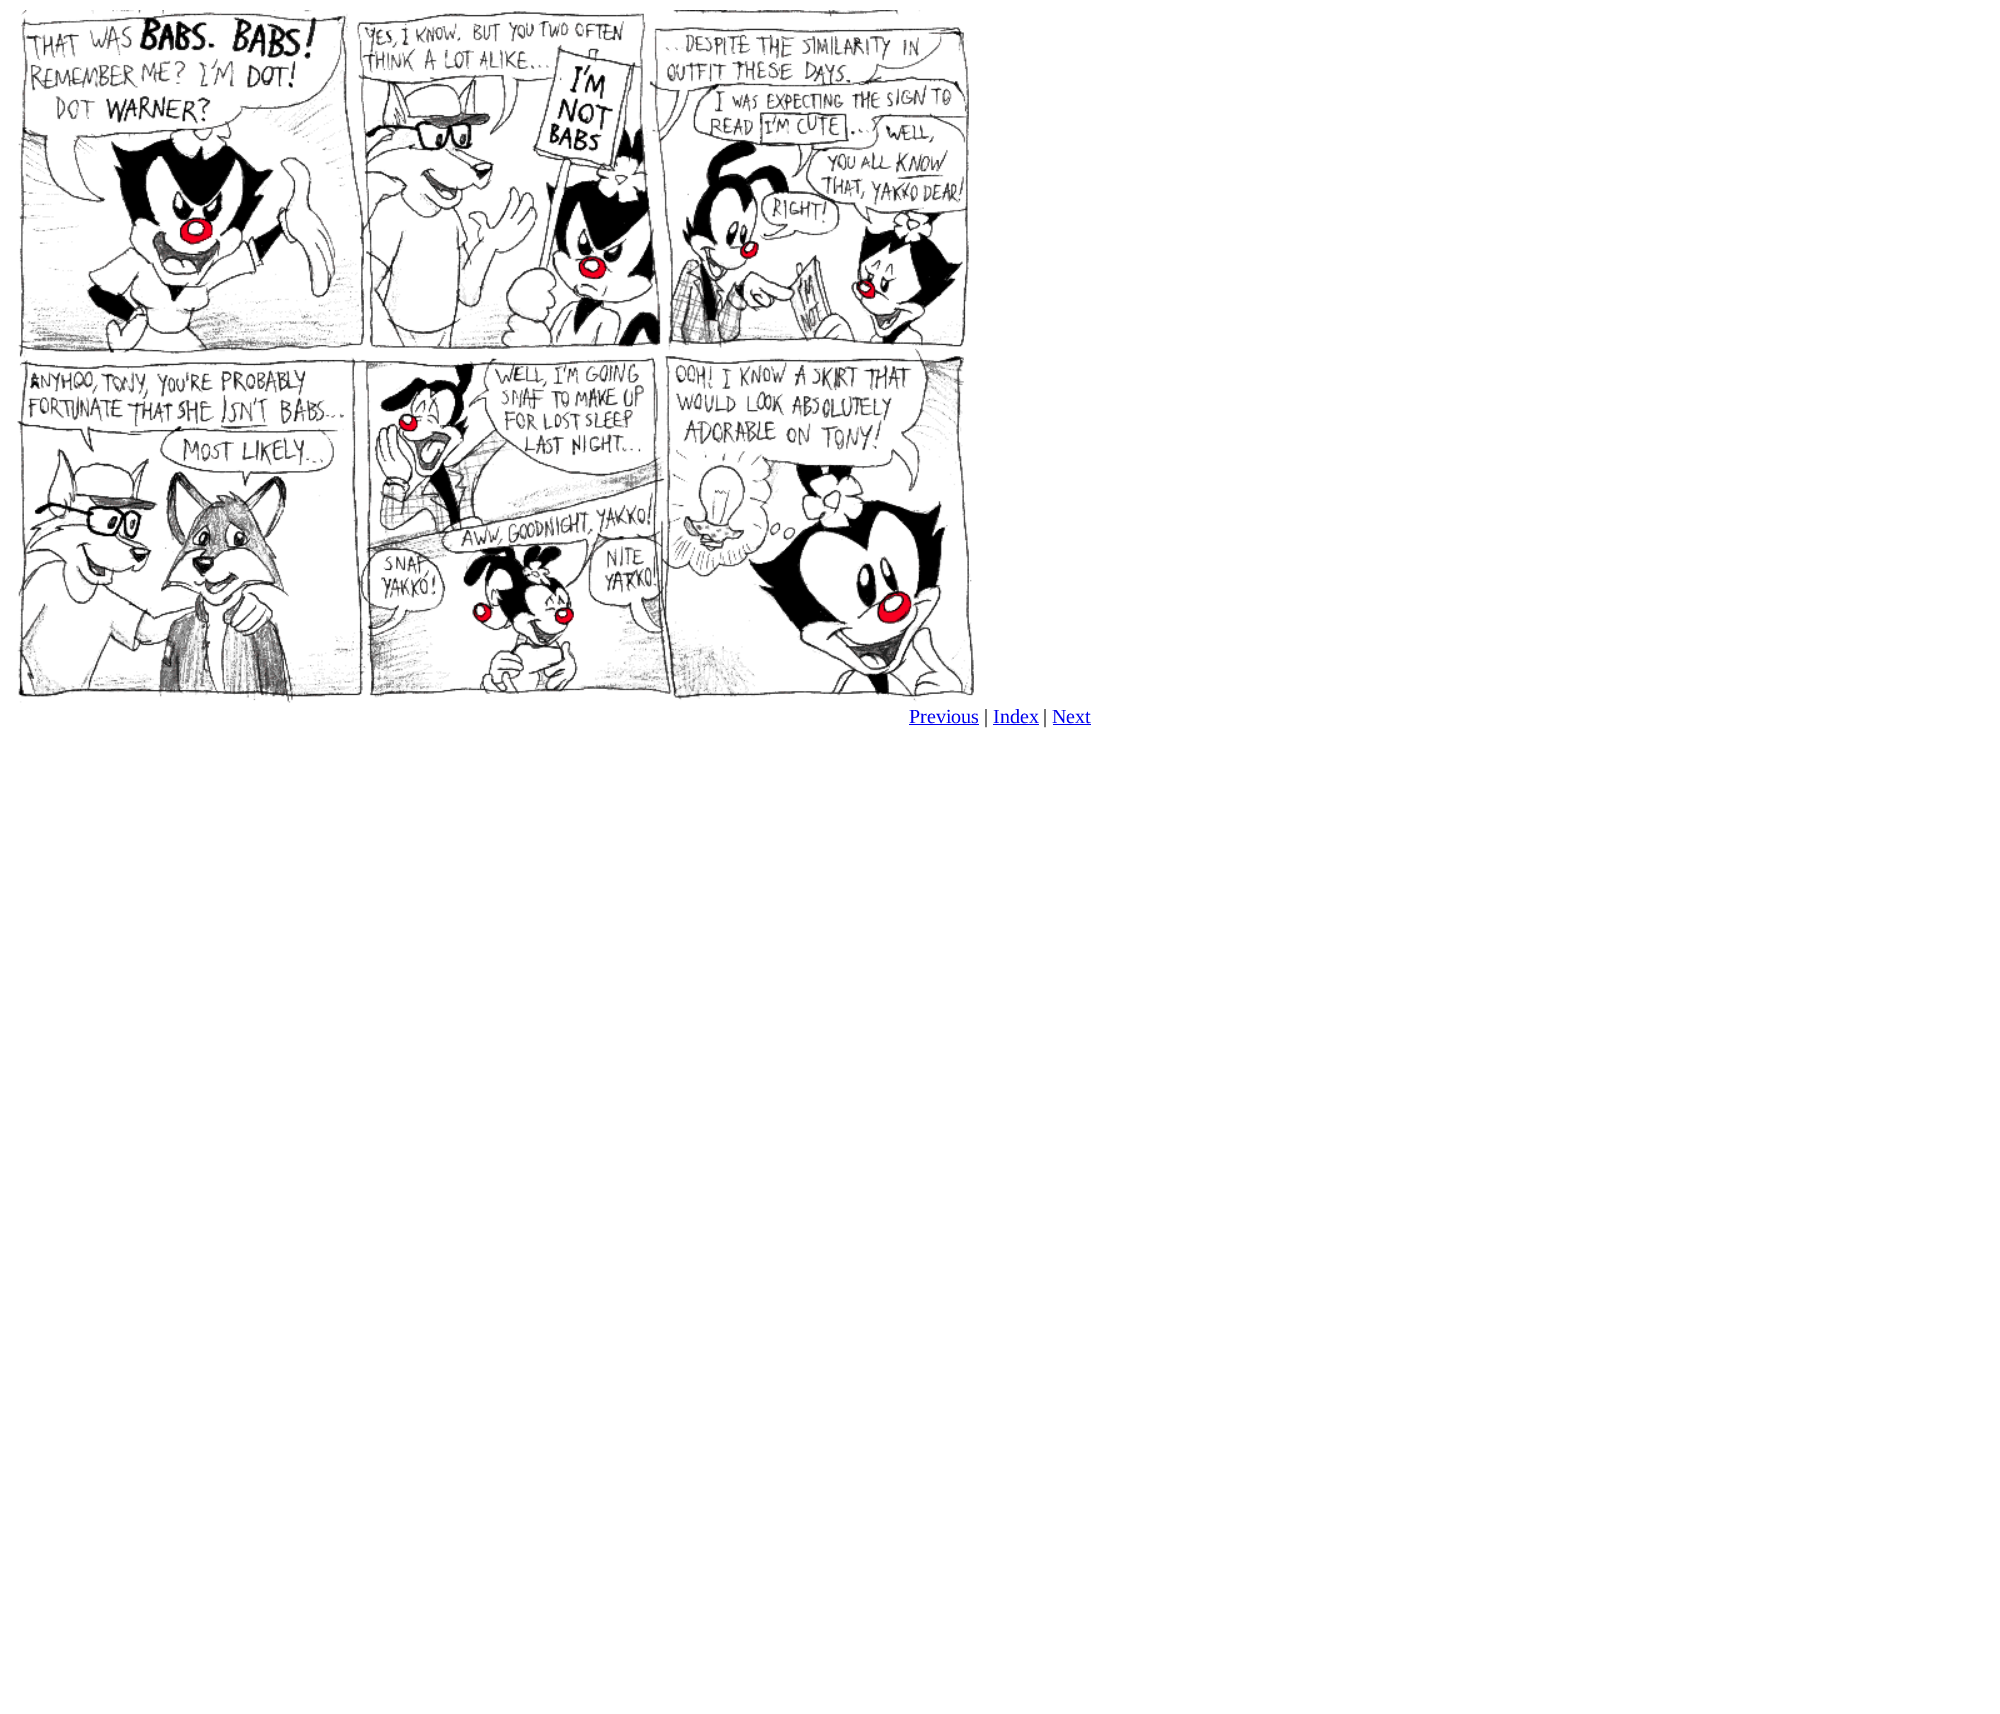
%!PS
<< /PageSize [2000 1714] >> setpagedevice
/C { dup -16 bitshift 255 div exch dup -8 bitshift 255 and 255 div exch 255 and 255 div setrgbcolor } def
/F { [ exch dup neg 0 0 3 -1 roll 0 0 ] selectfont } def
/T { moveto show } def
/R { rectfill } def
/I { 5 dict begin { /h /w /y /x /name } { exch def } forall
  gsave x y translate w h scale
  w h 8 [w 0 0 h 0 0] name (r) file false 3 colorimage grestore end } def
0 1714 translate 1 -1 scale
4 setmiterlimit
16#FFFFFF C
0 0 2000 1714 R
(1.rgb) 17 10 957 693 I
/LiberationSerif-Regular 20 F
16#0000EE C
(Previous) 909 723 T
909 724 70 1 R
16#000000 C
(|) 984 723 T
16#0000EE C
(Index) 993 723 T
993 724 46 1 R
16#000000 C
(|) 1043 723 T
16#0000EE C
(Next) 1052 723 T
1053 724 38 1 R
showpage
